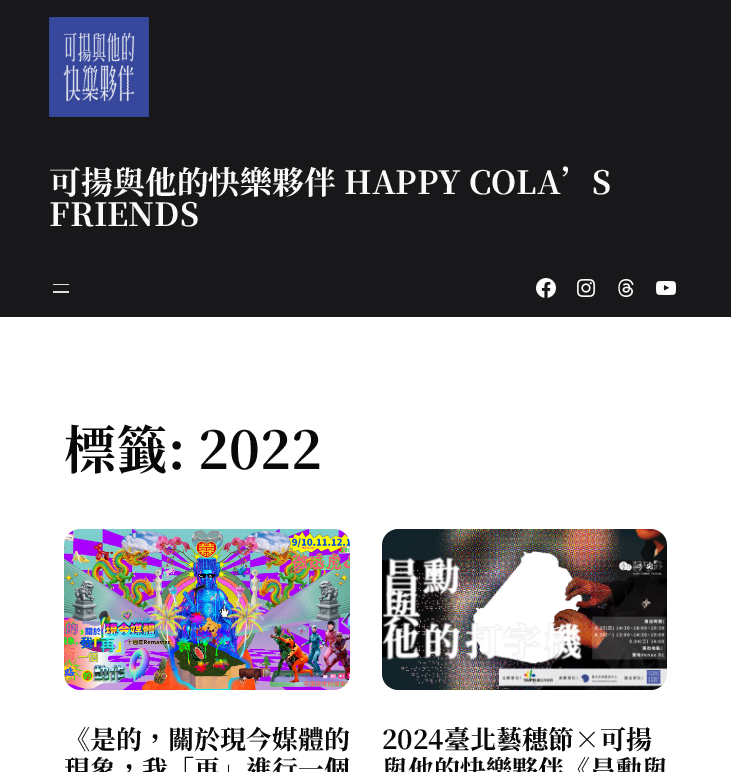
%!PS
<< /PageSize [731 772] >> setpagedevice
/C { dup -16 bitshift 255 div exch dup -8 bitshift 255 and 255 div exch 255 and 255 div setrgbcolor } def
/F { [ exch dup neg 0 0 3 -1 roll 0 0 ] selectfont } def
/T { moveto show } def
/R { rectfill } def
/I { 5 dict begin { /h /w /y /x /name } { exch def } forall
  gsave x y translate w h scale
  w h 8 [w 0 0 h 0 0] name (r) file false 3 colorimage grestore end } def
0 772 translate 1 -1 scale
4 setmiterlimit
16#FFFFFF C
0 0 731 772 R
16#18181A C
0 0 731 317 R
(1.rgb) 49 17 100 100 I
/NotoSerifTC-Bold 31.9 F
16#FAFAFA C
(可揚與他的快樂夥伴 HAPPY COLA’S) 49 194 T
(FRIENDS) 49 226 T
16#DFDFDF C
53 284 16 1 R
53 291 16 2 R
(2.rgb) 536 278 20 20 I
(3.rgb) 577 279 18 18 I
(4.rgb) 618 279 16 18 I
(5.rgb) 656 281 20 14 I
/NotoSerifTC-Bold 52 F
16#09090B C
(標籤: 2022) 64 469 T
(6.rgb) 64 529 286 161 I
/NotoSerifTC-Bold 26 F
(《是的，關於現今媒體的) 64 749 T
(現象，我「再」進行一個) 64 779 T
(7.rgb) 382 529 285 161 I
(2024臺北藝穗節×可揚) 382 749 T
(與他的快樂夥伴《昌勳與) 382 779 T
showpage
